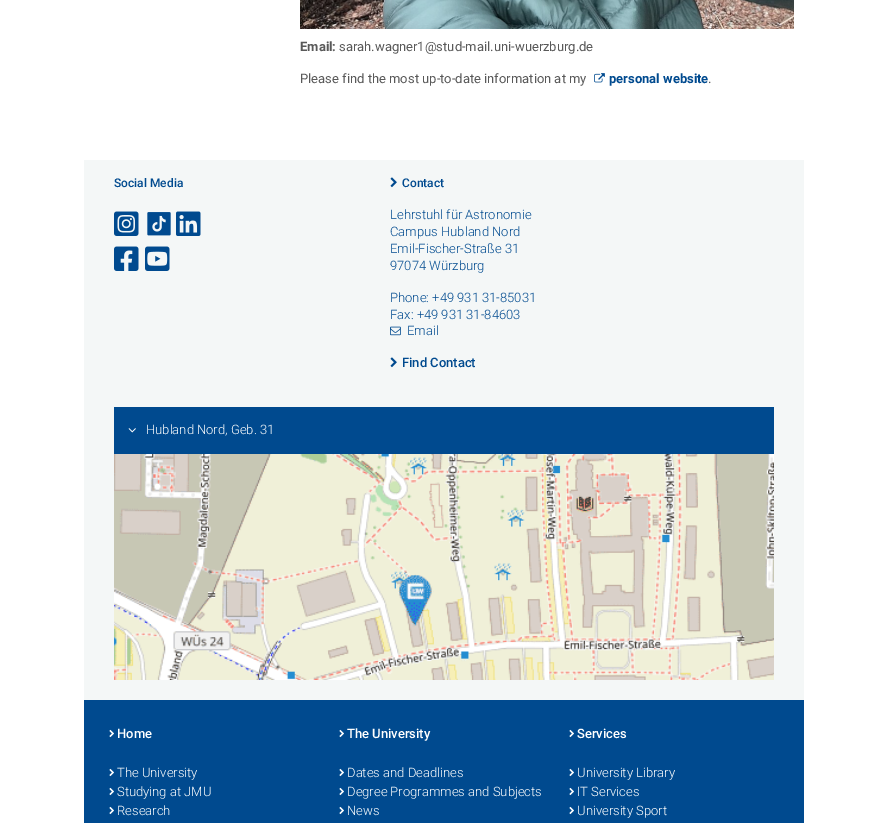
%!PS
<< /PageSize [888 823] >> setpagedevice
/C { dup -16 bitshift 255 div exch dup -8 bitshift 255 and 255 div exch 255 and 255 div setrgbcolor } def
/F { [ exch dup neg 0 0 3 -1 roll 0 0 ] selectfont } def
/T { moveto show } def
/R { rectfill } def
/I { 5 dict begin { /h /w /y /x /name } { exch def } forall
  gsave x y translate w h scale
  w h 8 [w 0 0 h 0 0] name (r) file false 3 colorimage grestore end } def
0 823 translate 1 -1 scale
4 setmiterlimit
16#FFFFFF C
0 0 888 823 R
(1.rgb) 300 0 494 29 I
/Roboto-Bold 13 F
16#595959 C
(Email:) 300 51 T
/Roboto-Regular 13 F
(sarah.wagner1@stud-mail.uni-wuerzburg.de) 339 51 T
(Please find the most up-to-date information at my) 300 83 T
(2.rgb) 594 73 11 10 I
/Roboto-Bold 13 F
16#004A8F C
(personal website) 609 83 T
/Roboto-Regular 13 F
16#595959 C
(.) 708 83 T
16#F4F7F7 C
84 160 720 540 R
/Roboto-Medium 12 F
16#004A8F C
(Social Media) 114 187 T
(3.rgb) 114 211 25 25 I
(4.rgb) 147 212 24 24 I
(5.rgb) 176 211 25 25 I
(6.rgb) 114 246 25 25 I
(7.rgb) 145 246 25 25 I
(8.rgb) 390 177 7 11 I
(Contact) 402 187 T
/Roboto-Light 13 F
(Lehrstuhl für Astronomie) 390 219 T
(Campus Hubland Nord) 390 236 T
(Emil-Fischer-Straße 31) 390 253 T
(97074 Würzburg) 390 270 T
(Phone: +49 931 31-85031) 390 302 T
(Fax: +49 931 31-84603) 390 319 T
(9.rgb) 390 326 11 10 I
(Email) 407 335 T
(8.rgb) 390 357 7 11 I
/Roboto-Medium 13 F
(Find Contact) 402 367 T
114 407 660 47 R
(10.rgb) 128 428 8 5 I
/Roboto-Light 13 F
16#FFFFFF C
(Hubland Nord, Geb. 31) 146 434 T
(11.rgb) 114 454 660 226 I
16#004A8F C
84 700 720 123 R
(12.rgb) 109 729 5 9 I
/Roboto-Medium 13 F
16#FFFFFF C
(Home) 117 738 T
(12.rgb) 109 768 5 9 I
/Roboto-Light 13 F
(The University) 117 777 T
(12.rgb) 109 787 5 9 I
(Studying at JMU) 117 796 T
(12.rgb) 109 806 5 9 I
(Research) 117 815 T
(12.rgb) 339 729 5 9 I
/Roboto-Medium 13 F
(The University) 347 738 T
(12.rgb) 339 768 5 9 I
/Roboto-Light 13 F
(Dates and Deadlines) 347 777 T
(12.rgb) 339 787 5 9 I
(Degree Programmes and Subjects) 347 796 T
(12.rgb) 339 806 5 9 I
(News) 347 815 T
(12.rgb) 569 729 5 9 I
/Roboto-Medium 13 F
(Services) 577 738 T
(12.rgb) 569 768 5 9 I
/Roboto-Light 13 F
(University Library) 577 777 T
(12.rgb) 569 787 5 9 I
(IT Services) 577 796 T
(12.rgb) 569 806 5 9 I
(University Sport) 577 815 T
showpage
